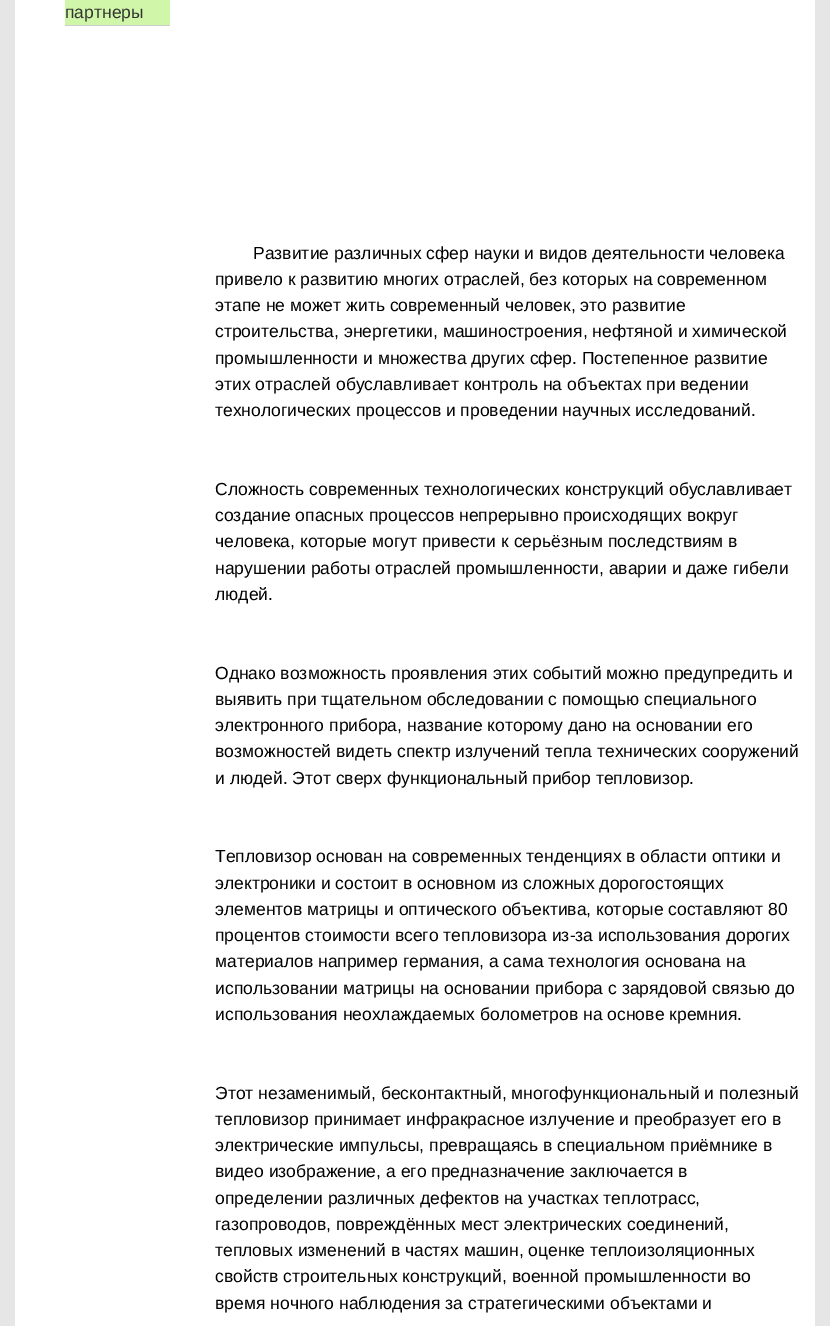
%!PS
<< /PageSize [830 1326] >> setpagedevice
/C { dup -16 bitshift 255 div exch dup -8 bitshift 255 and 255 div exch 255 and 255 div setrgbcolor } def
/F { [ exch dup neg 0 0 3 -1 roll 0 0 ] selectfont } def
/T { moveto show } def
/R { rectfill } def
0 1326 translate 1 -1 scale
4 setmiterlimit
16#E6E6E6 C
0 0 830 1326 R
16#FFFFFF C
15 0 800 1326 R
16#D0F7A9 C
65 0 105 25 R
16#CCCCCC C
65 25 105 1 R
/LiberationSans-Regular 17.5 F
16#333333 C
(партнеры) 65 18 T
16#000000 C
(Развитие различных сфер науки и видов деятельности человека) 253 259 T
(привело к развитию многих отраслей, без которых на современном) 215 285 T
(этапе не может жить современный человек, это развитие) 215 311 T
(строительства, энергетики, машиностроения, нефтяной и химической) 215 337 T
(промышленности и множества других сфер. Постепенное развитие) 215 364 T
(этих отраслей обуславливает контроль на объектах при ведении) 215 390 T
(технологических процессов и проведении научных исследований.) 215 416 T
(Сложность современных технологических конструкций обуславливает) 215 495 T
(создание опасных процессов непрерывно происходящих вокруг) 215 521 T
(человека, которые могут привести к серьёзным последствиям в) 215 547 T
(нарушении работы отраслей промышленности, аварии и даже гибели) 215 574 T
(людей.) 215 600 T
(Однако возможность проявления этих событий можно предупредить и) 215 679 T
(выявить при тщательном обследовании с помощью специального) 215 705 T
(электронного прибора, название которому дано на основании его) 215 731 T
(возможностей видеть спектр излучений тепла технических сооружений) 215 757 T
(и людей. Этот сверх функциональный прибор тепловизор.) 215 784 T
(Тепловизор основан на современных тенденциях в области оптики и) 215 862 T
(электроники и состоит в основном из сложных дорогостоящих) 215 889 T
(элементов матрицы и оптического объектива, которые составляют 80) 215 915 T
(процентов стоимости всего тепловизора из-за использования дорогих) 215 941 T
(материалов например германия, а сама технология основана на) 215 967 T
(использовании матрицы на основании прибора с зарядовой связью до) 215 994 T
(использования неохлаждаемых болометров на основе кремния.) 215 1020 T
(Этот незаменимый, бесконтактный, многофункциональный и полезный) 215 1099 T
(тепловизор принимает инфракрасное излучение и преобразует его в) 215 1125 T
(электрические импульсы, превращаясь в специальном приёмнике в) 215 1151 T
(видео изображение, а его предназначение заключается в) 215 1177 T
(определении различных дефектов на участках теплотрасс,) 215 1204 T
(газопроводов, повреждённых мест электрических соединений,) 215 1230 T
(тепловых изменений в частях машин, оценке теплоизоляционных) 215 1256 T
(свойств строительных конструкций, военной промышленности во) 215 1282 T
(время ночного наблюдения за стратегическими объектами и) 215 1309 T
showpage
